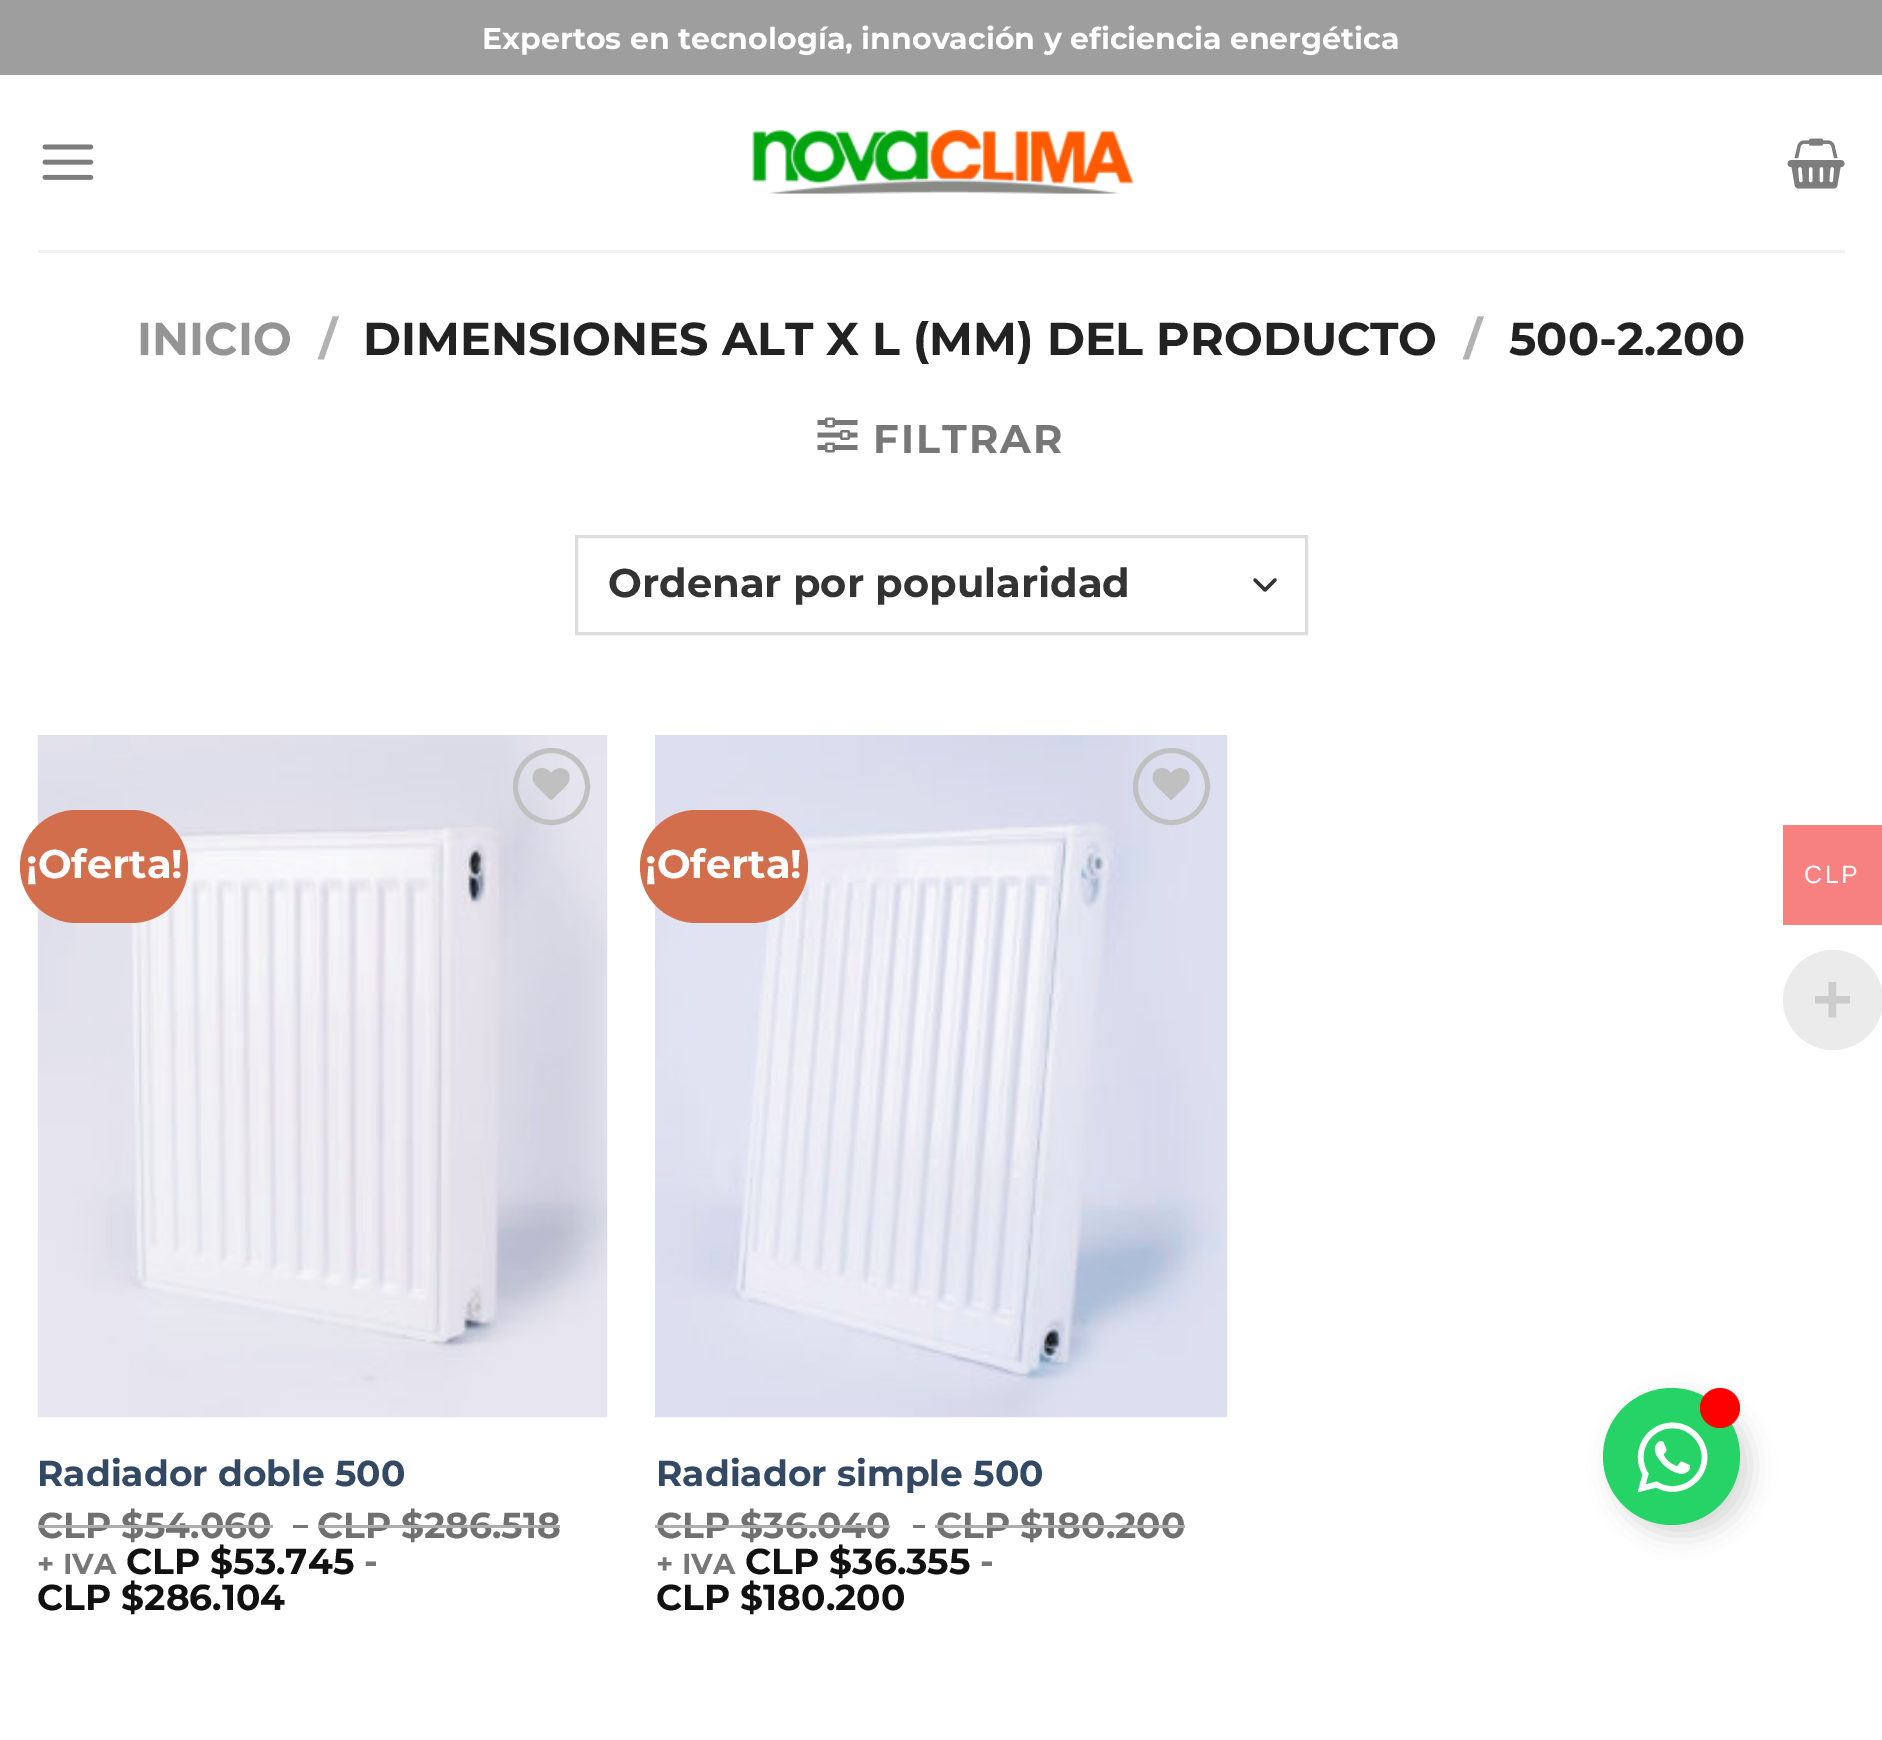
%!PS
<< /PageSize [1882 1740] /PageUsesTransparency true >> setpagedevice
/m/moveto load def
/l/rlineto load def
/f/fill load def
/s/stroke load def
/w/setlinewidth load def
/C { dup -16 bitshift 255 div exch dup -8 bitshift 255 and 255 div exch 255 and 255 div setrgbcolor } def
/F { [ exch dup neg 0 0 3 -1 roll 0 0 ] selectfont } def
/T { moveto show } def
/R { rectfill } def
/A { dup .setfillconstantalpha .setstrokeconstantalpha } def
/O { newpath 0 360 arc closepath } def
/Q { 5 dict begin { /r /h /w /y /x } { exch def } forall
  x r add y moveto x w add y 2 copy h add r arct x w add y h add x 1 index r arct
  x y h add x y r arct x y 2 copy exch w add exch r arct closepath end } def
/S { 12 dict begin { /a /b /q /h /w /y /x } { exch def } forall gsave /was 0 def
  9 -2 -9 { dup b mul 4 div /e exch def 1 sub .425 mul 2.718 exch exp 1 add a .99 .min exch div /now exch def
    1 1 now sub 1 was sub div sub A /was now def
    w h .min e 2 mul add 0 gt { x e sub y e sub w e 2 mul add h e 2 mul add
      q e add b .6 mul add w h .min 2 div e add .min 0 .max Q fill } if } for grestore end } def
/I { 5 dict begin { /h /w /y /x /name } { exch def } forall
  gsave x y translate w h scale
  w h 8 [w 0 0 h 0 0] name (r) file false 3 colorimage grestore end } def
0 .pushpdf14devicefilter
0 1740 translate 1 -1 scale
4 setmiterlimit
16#FFFFFF C
0 0 1882 1740 R
16#9E9E9E C
0 0 1882 75 R
/Montserrat-Bold 30 F
16#FFFFFF C
(Expertos en tecnología, innovación y eficiencia energética) 482 49 T
(1.rgb) 42 144 52 36 I
(2.rgb) 752 130 382 64 I
(3.rgb) 1787 138 58 51 I
16#F1F1F1 C
38 250 1807 3 R
/Montserrat-Bold 46 F
16#949494 C
(INICIO) 137 355 T
16#B2B2B2 C
(/) 319 355 T
16#222222 C
(DIMENSIONES ALT X L \(MM\) DEL PRODUCTO) 363 355 T
16#B2B2B2 C
(/) 1464 355 T
16#222222 C
(500-2.200) 1509 355 T
(4.rgb) 817 417 41 36 I
/Montserrat-Bold 40 F
16#777777 C
873 453 m 2 0 (FILTRAR) ashow
16#333333 C
3.3 w
1 setlinecap
1 setlinejoin
1255 580 m 10 10 l 10 -10 l s
16#DDDDDD C
3 w
0 setlinecap
0 setlinejoin
576.5 536.5 730 97 rectstroke
16#333333 C
(Ordenar por popularidad) 608 597 T
(5.rgb) 37 735 571 683 I
16#D26E4B C
20 810 168 113 56.5 Q f
16#FFFFFF C
(¡Oferta!) 26 878 T
16#C0C0C0 C
5 w
551.5 786.5 36 O s
(6.rgb) 532 768 38 32 I
/Montserrat-Bold 36 F
16#334862 C
(Radiador doble 500) 37 1486 T
16#707070 C
(CLP $) 37 1538 T
16#ADADAD C
38 1525 107 3 R
16#707070 C
(54.060) 144 1538 T
16#ADADAD C
145 1525 128 3 R
16#777777 C
293 1525 15 3 R
16#707070 C
(CLP $) 317 1538 T
16#ADADAD C
318 1525 107 3 R
16#707070 C
(286.518) 424 1538 T
16#ADADAD C
425 1525 135 3 R
/Montserrat-Bold 29 F
16#777777 C
(+ IVA) 37 1574 T
/Montserrat-Bold 36 F
16#111111 C
(CLP $53.745) 126 1574 T
16#777777 C
(-) 364 1574 T
16#111111 C
(CLP $286.104) 37 1610 T
(7.rgb) 655 735 573 683 I
16#D26E4B C
640 810 168 113 56.5 Q f
/Montserrat-Bold 40 F
16#FFFFFF C
(¡Oferta!) 645 878 T
16#C0C0C0 C
1171.5 786.5 36 O s
(8.rgb) 1152 768 38 32 I
/Montserrat-Bold 36 F
16#334862 C
(Radiador simple 500) 656 1486 T
16#707070 C
(CLP $36.040) 656 1538 T
16#ADADAD C
655 1525 235 3 R
16#777777 C
913 1525 12 3 R
16#707070 C
(CLP $180.200) 936 1538 T
16#ADADAD C
935 1525 250 3 R
/Montserrat-Bold 29 F
16#777777 C
(+ IVA) 656 1574 T
/Montserrat-Bold 36 F
16#111111 C
(CLP $36.355) 745 1574 T
16#777777 C
(-) 980 1574 T
16#111111 C
(CLP $180.200) 656 1610 T
16#F78080 C
1783 825 99 100 R
/LiberationSans-Regular 25 F
16#FFFFFF C
1804 883 m 2.5 0 (CLP) ashow
16#EBEBEB C
1833 1000 50 O f
/LiberationSans-Bold 70 F
16#CCCCCC C
(+) 1812 1023 T
16#000000 C
1613 1398 137 137 68.5 12.5 .15 S
16#25D366 C
1671.5 1456.5 68.5 O f
(9.rgb) 1637 1422 71 71 I
16#FF0000 C
1720 1408 20 O f
.poppdf14devicefilter showpage
